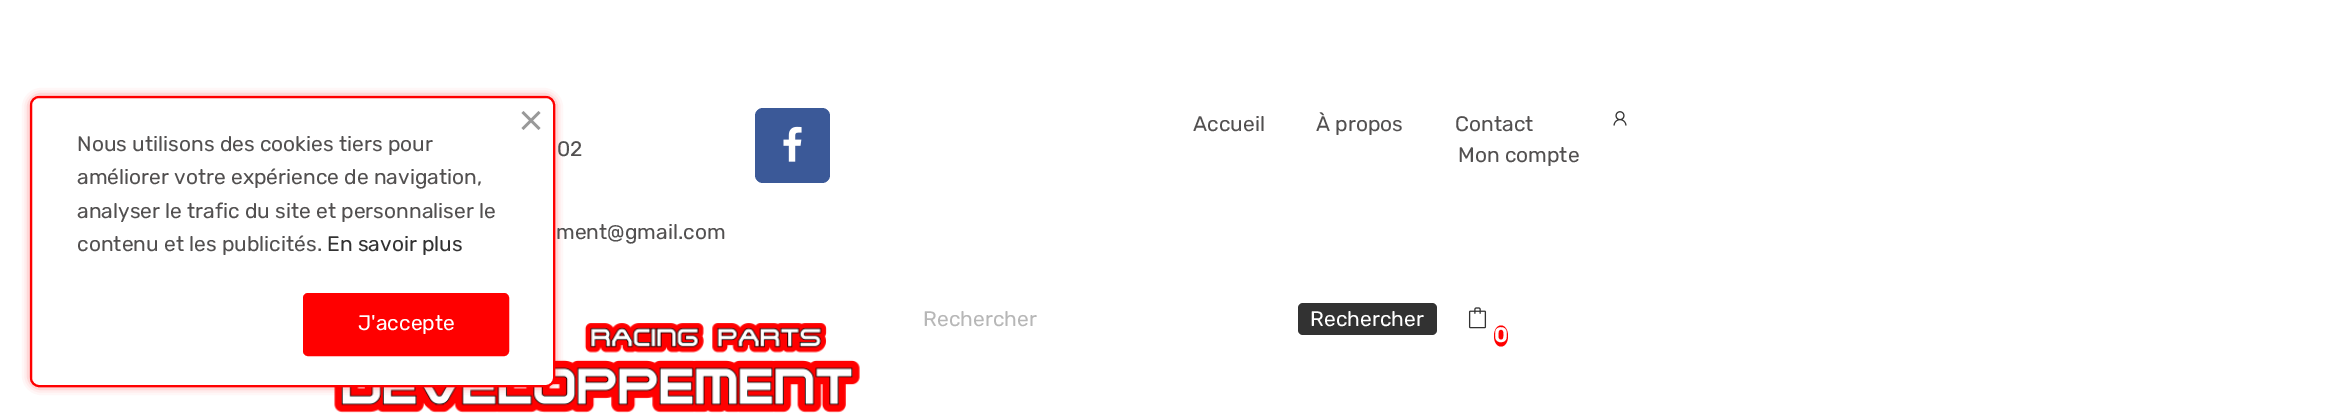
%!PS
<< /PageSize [2334 417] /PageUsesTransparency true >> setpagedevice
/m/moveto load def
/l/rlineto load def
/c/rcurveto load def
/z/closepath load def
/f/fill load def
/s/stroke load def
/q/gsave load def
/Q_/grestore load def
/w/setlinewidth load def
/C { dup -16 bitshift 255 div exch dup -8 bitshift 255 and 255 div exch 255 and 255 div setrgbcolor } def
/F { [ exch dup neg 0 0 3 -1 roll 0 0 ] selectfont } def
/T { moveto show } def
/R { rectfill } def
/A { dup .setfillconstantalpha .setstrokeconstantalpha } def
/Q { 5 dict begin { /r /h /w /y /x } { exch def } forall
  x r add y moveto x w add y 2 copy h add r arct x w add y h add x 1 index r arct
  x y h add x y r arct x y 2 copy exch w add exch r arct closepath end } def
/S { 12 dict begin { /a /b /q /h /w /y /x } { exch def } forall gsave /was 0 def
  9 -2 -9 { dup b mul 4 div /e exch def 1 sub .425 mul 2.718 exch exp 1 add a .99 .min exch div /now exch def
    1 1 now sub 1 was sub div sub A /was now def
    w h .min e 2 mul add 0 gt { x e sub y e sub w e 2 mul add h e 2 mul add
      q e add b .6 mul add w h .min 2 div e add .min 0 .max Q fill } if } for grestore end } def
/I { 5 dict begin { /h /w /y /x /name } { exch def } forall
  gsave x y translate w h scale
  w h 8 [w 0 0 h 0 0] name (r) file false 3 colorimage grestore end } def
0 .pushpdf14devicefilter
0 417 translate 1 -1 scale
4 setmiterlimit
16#FFFFFF C
0 0 2334 417 R
(3.rgb) 334 323 526 90 I
16#FF0000 C
33 99 519 285 6 5 1 S
16#FFFFFF C
31 97 523 289 8 Q q f Q_
16#FF0000 C
2 w
s
16#999999 C
521.5 128 m 17 -17 l 2 2 l -17 17 l z f
523.5 111 m 17 17 l -2 2 l -17 -17 l z f
/Rubik-Regular 21 F
16#525050 C
(Nous utilisons des cookies tiers pour) 77 151 T
(améliorer votre expérience de navigation,) 77 184 T
(analyser le trafic du site et personnaliser le) 77 218 T
(contenu et les publicités.) 77 251 T
16#323232 C
(En savoir plus) 327 251 T
16#FF0000 C
304 294 204 61 4 Q q f Q_
s
16#FFFFFF C
(J'accepte) 358 330 T
16#525050 C
(02) 557 156 T
(ment@gmail.com) 556 239 T
16#3B5998 C
755 108 75 75 8 Q f
(1.rgb) 783 126 19 36 I
16#525050 C
(Accueil) 1193 131 T
(À propos) 1316 131 T
(Contact) 1455 131 T
(Mon compte) 1458 162 T
(2.rgb) 1613 111 14 15 I
16#B7B7B7 C
(Rechercher) 923 326 T
16#323232 C
1298 303 139 32 5 Q f
16#FFFFFF C
(Rechercher) 1310 326 T
(4.rgb) 1468 307 19 22 I
16#FF0000 C
1501 325.5 m 4 0 7 4.5 7 10.5 c 0 6 -3 10.5 -7 10.5 c -4 0 -7 -4.5 -7 -10.5 c 0 -6 3 -10.5 7 -10.5 c z f
/Rubik-SemiBold 21 F
16#FFFFFF C
(0) 1494 342 T
.poppdf14devicefilter showpage
